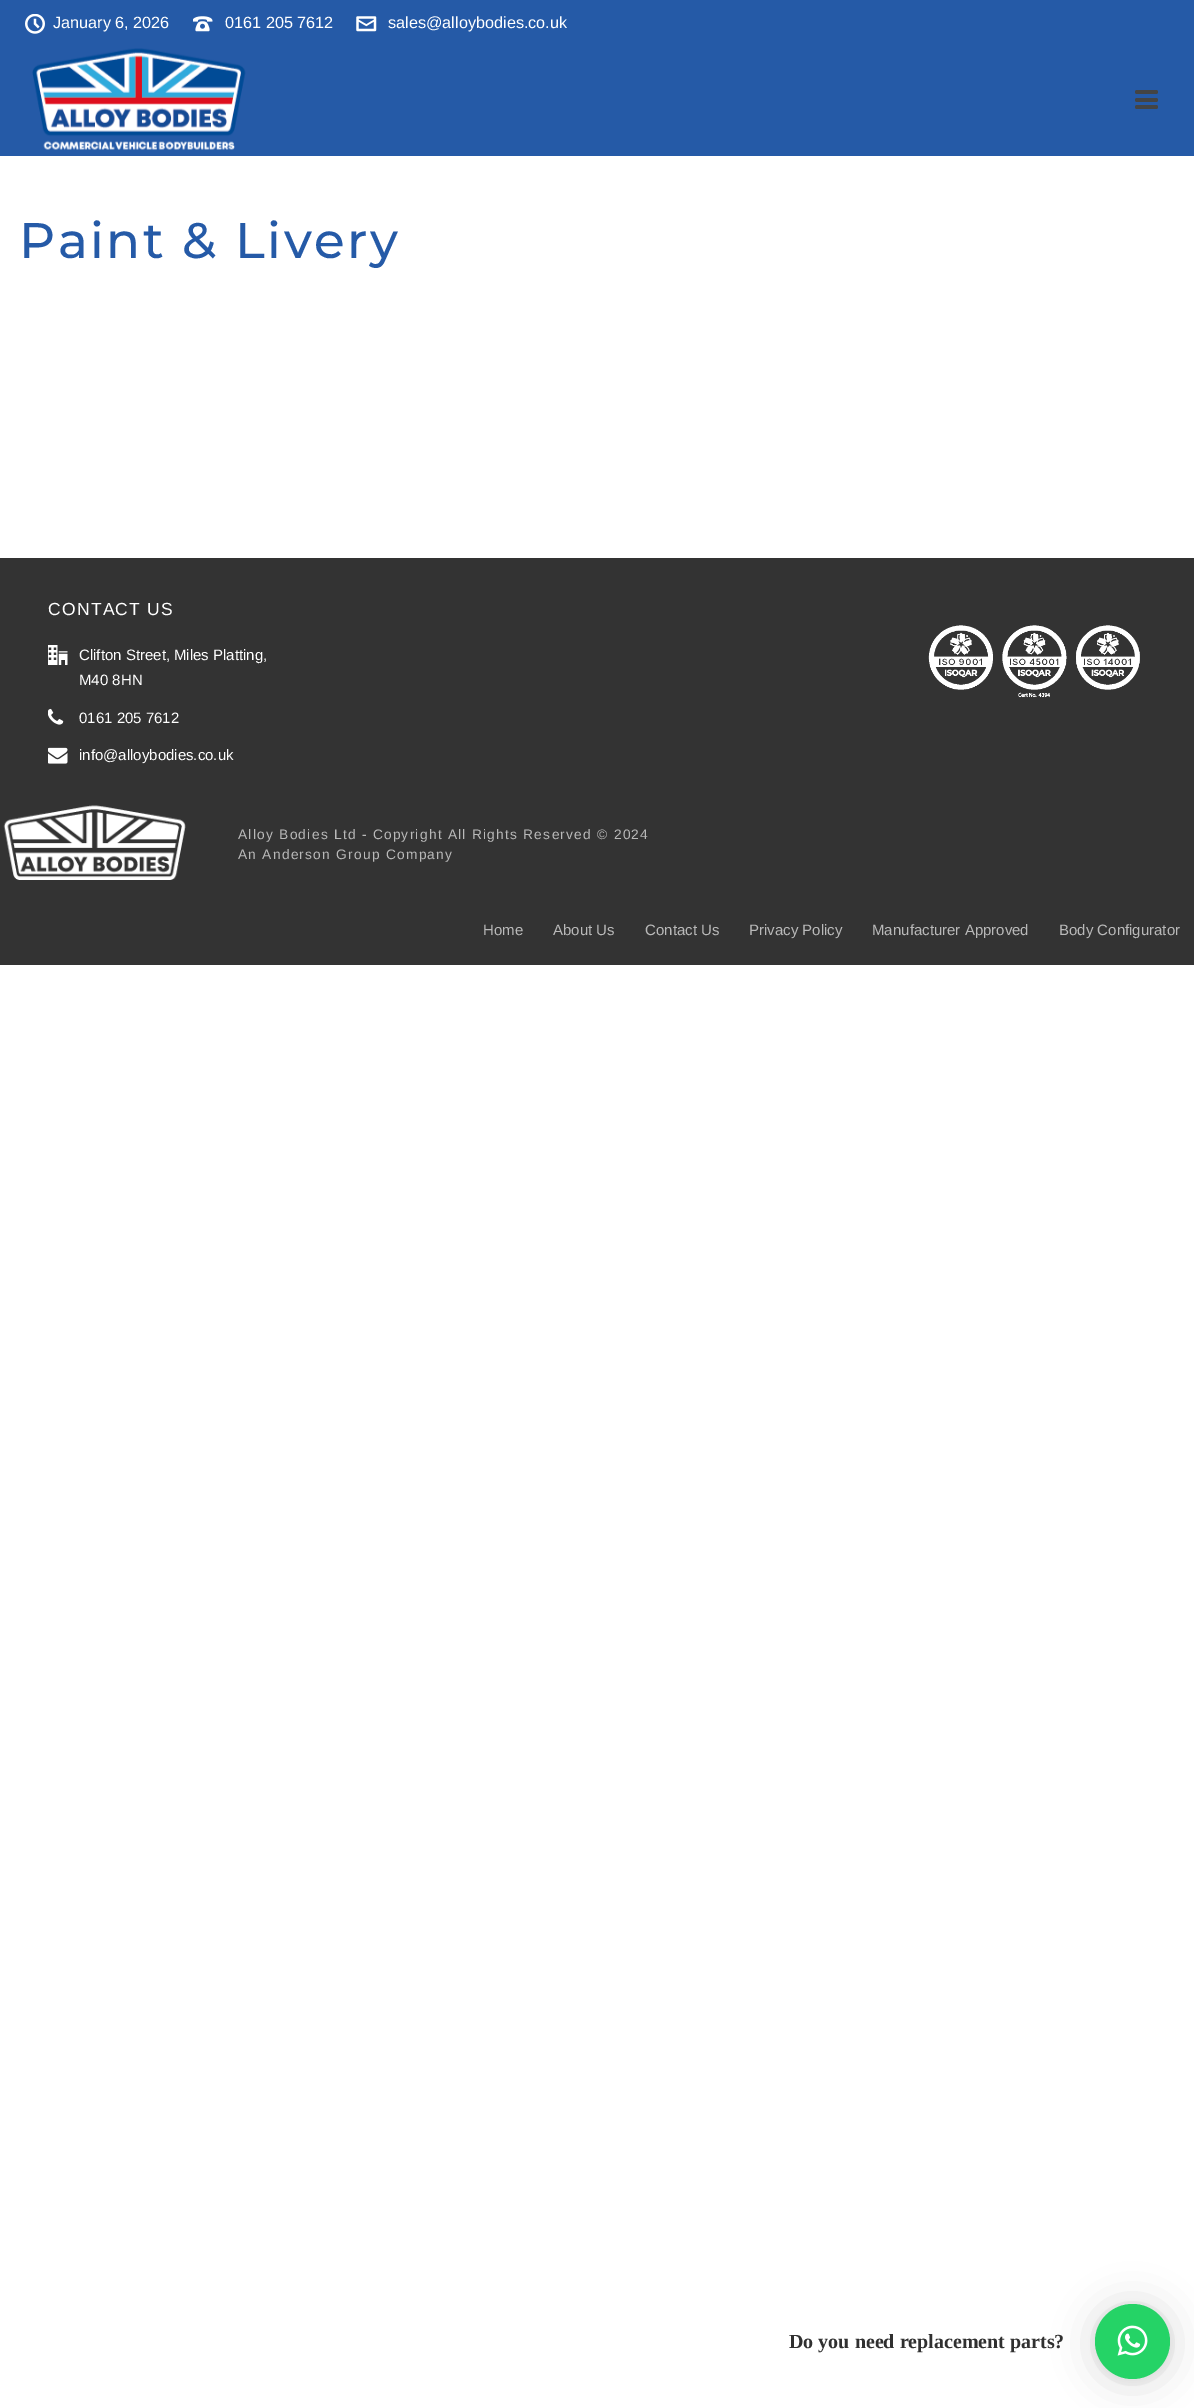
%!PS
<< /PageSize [1194 2408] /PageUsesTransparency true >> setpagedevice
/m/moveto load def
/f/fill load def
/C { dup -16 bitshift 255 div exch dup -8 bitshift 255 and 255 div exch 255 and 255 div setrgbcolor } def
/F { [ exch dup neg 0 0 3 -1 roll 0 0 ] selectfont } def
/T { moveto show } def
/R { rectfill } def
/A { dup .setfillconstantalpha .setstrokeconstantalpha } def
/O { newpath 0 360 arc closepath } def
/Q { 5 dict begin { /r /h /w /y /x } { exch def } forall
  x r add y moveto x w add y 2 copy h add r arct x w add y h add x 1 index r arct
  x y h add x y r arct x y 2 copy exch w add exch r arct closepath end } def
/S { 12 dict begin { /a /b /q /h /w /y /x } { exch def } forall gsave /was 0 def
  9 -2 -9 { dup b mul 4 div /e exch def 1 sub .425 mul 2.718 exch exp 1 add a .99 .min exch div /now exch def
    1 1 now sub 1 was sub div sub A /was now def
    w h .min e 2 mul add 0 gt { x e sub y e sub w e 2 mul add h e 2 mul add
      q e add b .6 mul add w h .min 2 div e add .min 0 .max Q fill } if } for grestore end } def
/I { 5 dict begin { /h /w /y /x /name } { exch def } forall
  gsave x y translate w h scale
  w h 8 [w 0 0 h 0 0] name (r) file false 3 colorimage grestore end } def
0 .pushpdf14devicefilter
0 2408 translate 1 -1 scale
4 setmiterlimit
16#FFFFFF C
0 0 1194 2408 R
16#255AA7 C
0 0 1194 156 R
(1.rgb) 32 48 214 102 I
16#444444 C
1135 90 23 4 2 Q f
1135 98 23 4 2 Q f
1135 105 23 4 2 Q f
(2.rgb) 25 14 20 20 I
/LiberationSans-Regular 16.25 F
16#FFFFFF C
(January 6, 2026) 53 28 T
(3.rgb) 193 16 20 16 I
(0161 205 7612) 225 28 T
(4.rgb) 356 16 21 16 I
(sales@alloybodies.co.uk) 388 28 T
/Montserrat-Medium 50 F
16#255AA7 C
19 258 m 2.5 0 (Paint & Livery) ashow
16#333333 C
0 558 1194 407 R
/LiberationSans-Regular 17.5 F
16#FFFFFF C
48 615 m 1.25 0 (CONTACT US) ashow
(5.rgb) 48 645 20 20 I
/LiberationSans-Regular 15 F
(Clifton Street, Miles Platting,) 79 660 T
(M40 8HN) 79 685 T
(6.rgb) 48 708 16 17 I
(0161 205 7612) 79 723 T
(7.rgb) 48 747 20 17 I
(info@alloybodies.co.uk) 79 760 T
(8.rgb) 928 625 212 73 I
(9.rgb) 3 805 183 75 I
/LiberationSans-Regular 13.75 F
16#B9B9B9 C
238 839 m 1.25 0 (Alloy Bodies Ltd - Copyright All Rights Reserved © 2024) ashow
238 859 m 1.25 0 (An Anderson Group Company) ashow
/LiberationSans-Regular 15 F
(Home) 483 935 T
(About Us) 553 935 T
(Contact Us) 645 935 T
(Privacy Policy) 749 935 T
(Manufacturer Approved) 872 935 T
(Body Configurator) 1059 935 T
16#000000 C
1095 2306 75 75 37.5 20 .16 S
1095 2305 75 75 37.5 4 .06 S
16#25D366 C
1132.5 2341.5 37.5 O f
/LiberationSerif-Bold 20 F
16#303030 C
(Do you need replacement parts?) 789 2348 T
(10.rgb) 1117 2325 31 31 I
.poppdf14devicefilter showpage
